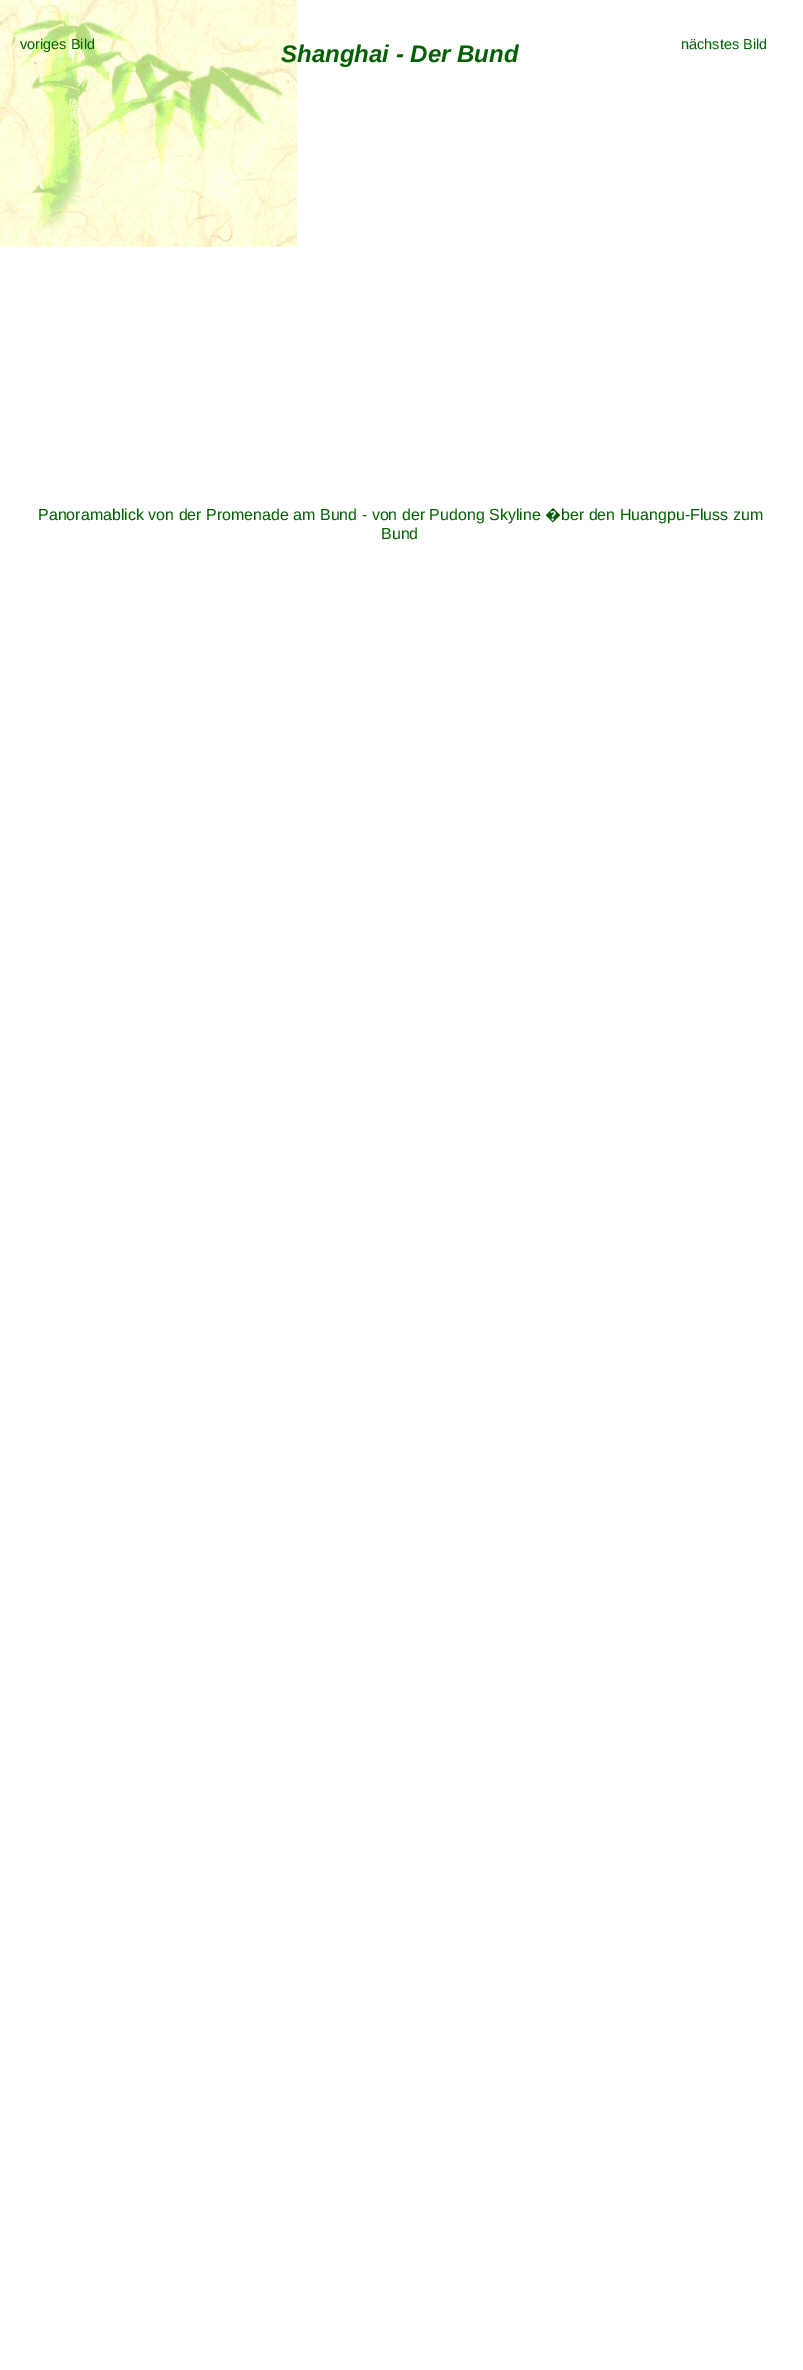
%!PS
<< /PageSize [803 2370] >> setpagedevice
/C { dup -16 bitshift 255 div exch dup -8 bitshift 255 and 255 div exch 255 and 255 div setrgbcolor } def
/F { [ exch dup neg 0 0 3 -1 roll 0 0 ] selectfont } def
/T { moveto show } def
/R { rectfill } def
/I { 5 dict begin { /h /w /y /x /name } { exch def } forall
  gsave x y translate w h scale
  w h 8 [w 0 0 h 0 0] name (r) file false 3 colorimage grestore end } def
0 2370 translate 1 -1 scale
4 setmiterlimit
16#FFFFFF C
0 0 803 2370 R
(1.rgb) 0 0 297 247 I
/LiberationSans-Regular 14.5 F
16#006000 C
(voriges Bild) 20 49 T
(nächstes Bild) 681 49 T
/LiberationSans-BoldItalic 24 F
(Shanghai - Der Bund) 281 62 T
/LiberationSans-Regular 16 F
(Panoramablick von der Promenade am Bund - von der Pudong Skyline) 38 520 T
/NotoSans-Regular 16 F
(�) 545 520 T
/LiberationSans-Regular 16 F
(ber den Huangpu-Fluss zum) 561 520 T
(Bund) 381 539 T
showpage
